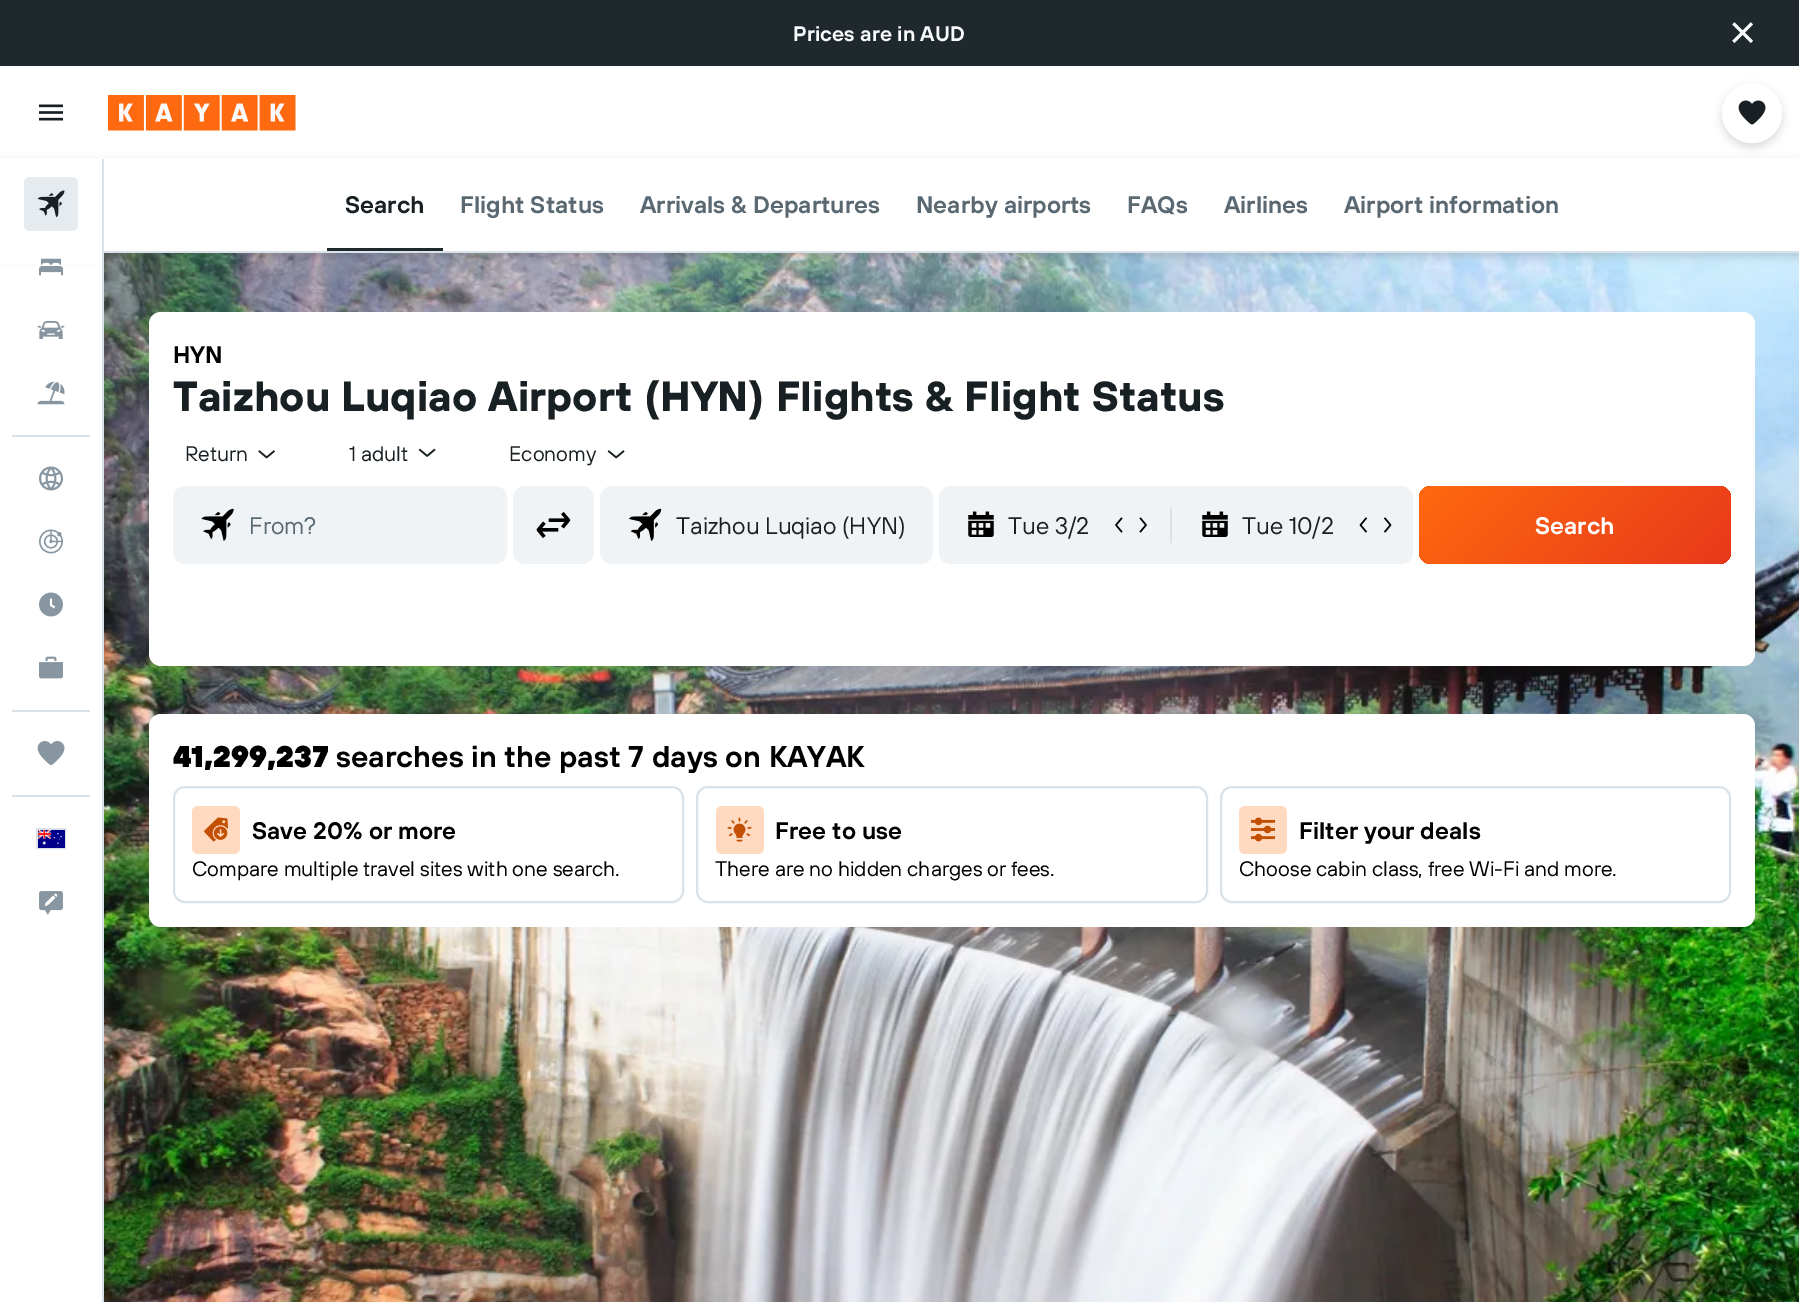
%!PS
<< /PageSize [1799 1302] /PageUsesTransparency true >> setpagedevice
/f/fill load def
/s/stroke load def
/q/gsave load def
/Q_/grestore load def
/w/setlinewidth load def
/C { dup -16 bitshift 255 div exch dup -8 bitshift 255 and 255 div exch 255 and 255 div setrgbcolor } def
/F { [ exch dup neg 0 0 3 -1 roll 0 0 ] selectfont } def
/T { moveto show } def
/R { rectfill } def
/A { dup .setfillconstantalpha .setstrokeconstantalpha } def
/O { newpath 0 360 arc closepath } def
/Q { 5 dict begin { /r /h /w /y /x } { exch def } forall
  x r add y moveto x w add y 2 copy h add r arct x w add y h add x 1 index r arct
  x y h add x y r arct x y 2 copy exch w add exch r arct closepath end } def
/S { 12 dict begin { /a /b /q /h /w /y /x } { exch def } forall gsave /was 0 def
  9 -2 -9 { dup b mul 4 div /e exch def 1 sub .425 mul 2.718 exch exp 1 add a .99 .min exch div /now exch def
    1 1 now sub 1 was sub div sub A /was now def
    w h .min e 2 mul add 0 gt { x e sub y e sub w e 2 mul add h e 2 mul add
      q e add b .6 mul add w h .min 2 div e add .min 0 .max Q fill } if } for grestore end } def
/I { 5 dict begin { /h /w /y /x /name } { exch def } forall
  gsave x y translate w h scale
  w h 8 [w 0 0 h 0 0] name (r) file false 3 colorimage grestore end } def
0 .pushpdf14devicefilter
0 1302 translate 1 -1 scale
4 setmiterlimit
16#FFFFFF C
0 0 1799 1302 R
16#1F282D C
0 0 1799 66 R
/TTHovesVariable-SemiBold 21 F
16#F9FAFB C
(Prices are in AUD) 793 41 T
(1.rgb) 1732 22 21 21 I
(2.rgb) 39 104 24 17 I
(3.rgb) 108 95 188 36 I
(16.rgb) 104 253 1695 1049 I
16#192024 C
0 162 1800 95 0 4.5 .16 S
16#FFFFFF C
0 158 1799 93 R
16#192024 C
1722 87 60 60 30 4.5 .16 S
16#FFFFFF C
1752 113 30 O f
(4.rgb) 1738 100 28 25 I
0 251 102 13 R
16#D9E2E8 C
102 159 2 1143 R
16#E6EBEF C
24 177 54 54 6 Q f
(5.rgb) 37 190 28 28 I
(6.rgb) 39 258 24 18 I
(7.rgb) 37 320 28 19 I
(8.rgb) 37 381 28 24 I
16#D9E2E8 C
12 435 78 2 R
(9.rgb) 39 466 24 25 I
(10.rgb) 39 529 24 25 I
(11.rgb) 39 592 24 25 I
(12.rgb) 39 656 24 23 I
12 710 78 2 R
(13.rgb) 37 741 28 24 I
12 795 78 2 R
2 w
37 829 28 19 rectstroke
(14.rgb) 38 830 27 18 I
(15.rgb) 39 891 24 24 I
104 251 1695 2 R
16#1F282D C
327 248 116 3 R
/TTHovesVariable-SemiBold 24 F
16#192024 C
(Search) 345 213 T
16#5A6872 C
(Flight Status) 460 213 T
(Arrivals & Departures) 640 213 T
(Nearby airports) 916 213 T
(FAQs) 1127 213 T
(Airlines) 1224 213 T
(Airport information) 1344 213 T
16#FFFFFF C
149 312 1606 354 12 Q f
16#000000 C
(HYN) 173 363 T
/TTHovesVariable-Bold 42 F
16#192024 C
(Taizhou Luqiao Airport \(HYN\) Flights & Flight Status) 173 411 T
/TTHovesVariable-Regular 21 F
(Return) 185 461 T
(17.rgb) 258 450 17 9 I
(1 adult) 349 461 T
(18.rgb) 418 448 18 9 I
(Economy) 509 461 T
(19.rgb) 607 450 18 9 I
16#F0F3F5 C
174 487 332 76 11 Q q f Q_
s
(20.rgb) 201 508 33 34 I
/TTHovesVariable-Regular 24 F
16#5A6872 C
(From?) 249 534 T
16#F0F3F5 C
513 486 81 78 12 Q f
(21.rgb) 536 511 35 27 I
601 487 331 76 11 Q q f Q_
s
(22.rgb) 628 508 34 34 I
16#192024 C
(Taizhou Luqiao \(HYN\)) 676 534 T
16#F0F3F5 C
939 486 474 78 12 Q f
939 486 230 78 12 Q f
(23.rgb) 968 511 26 26 I
16#192024 C
(Tue 3/2) 1008 534 T
(24.rgb) 1115 517 8 16 I
(25.rgb) 1139 517 8 16 I
16#D9E2E8 C
1170 507 2 36 R
16#F0F3F5 C
1173 486 240 78 12 Q f
(23.rgb) 1202 511 26 26 I
16#192024 C
(Tue 10/2) 1242 534 T
(26.rgb) 1359 517 9 16 I
(27.rgb) 1383 517 9 16 I
q 1419 486 312 78 12 Q clip newpath
<< /ShadingType 2 /ColorSpace /DeviceRGB /Coords [1478 428 1673 623] /Extend [true true] /Function << /FunctionType 2 /Domain [0 1] /C0 [1 .412 .059] /C1 [.91 .22 .106] /N 1 >> >> shfill Q_
/TTHovesVariable-SemiBold 24 F
16#FFFFFF C
(Search) 1535 534 T
149 714 1606 213 12 Q f
/TTHovesVariable-Black 30 F
16#000000 C
(41,299,237) 173 767 T
/TTHovesVariable-SemiBold 30 F
(searches in the past 7 days on KAYAK) 336 767 T
16#D9E2E8 C
174 787 509 115 11 Q s
16#FFDAC1 C
192 806 48 48 6 Q f
(28.rgb) 204 817 24 25 I
/TTHovesVariable-SemiBold 24 F
16#000000 C
(Save 20% or more) 252 839 T
/TTHovesVariable-Regular 21 F
(Compare multiple travel sites with one search.) 192 876 T
16#D9E2E8 C
697 787 510 115 11 Q s
16#FFDAC1 C
716 806 48 48 6 Q f
(29.rgb) 727 817 25 25 I
/TTHovesVariable-SemiBold 24 F
16#000000 C
(Free to use) 775 839 T
/TTHovesVariable-Regular 21 F
(There are no hidden charges or fees.) 715 876 T
16#D9E2E8 C
1221 787 509 115 11 Q s
16#FFDAC1 C
1239 806 48 48 6 Q f
(30.rgb) 1251 817 24 25 I
/TTHovesVariable-SemiBold 24 F
16#000000 C
(Filter your deals) 1299 839 T
/TTHovesVariable-Regular 21 F
(Choose cabin class, free Wi-Fi and more.) 1239 876 T
.poppdf14devicefilter showpage
